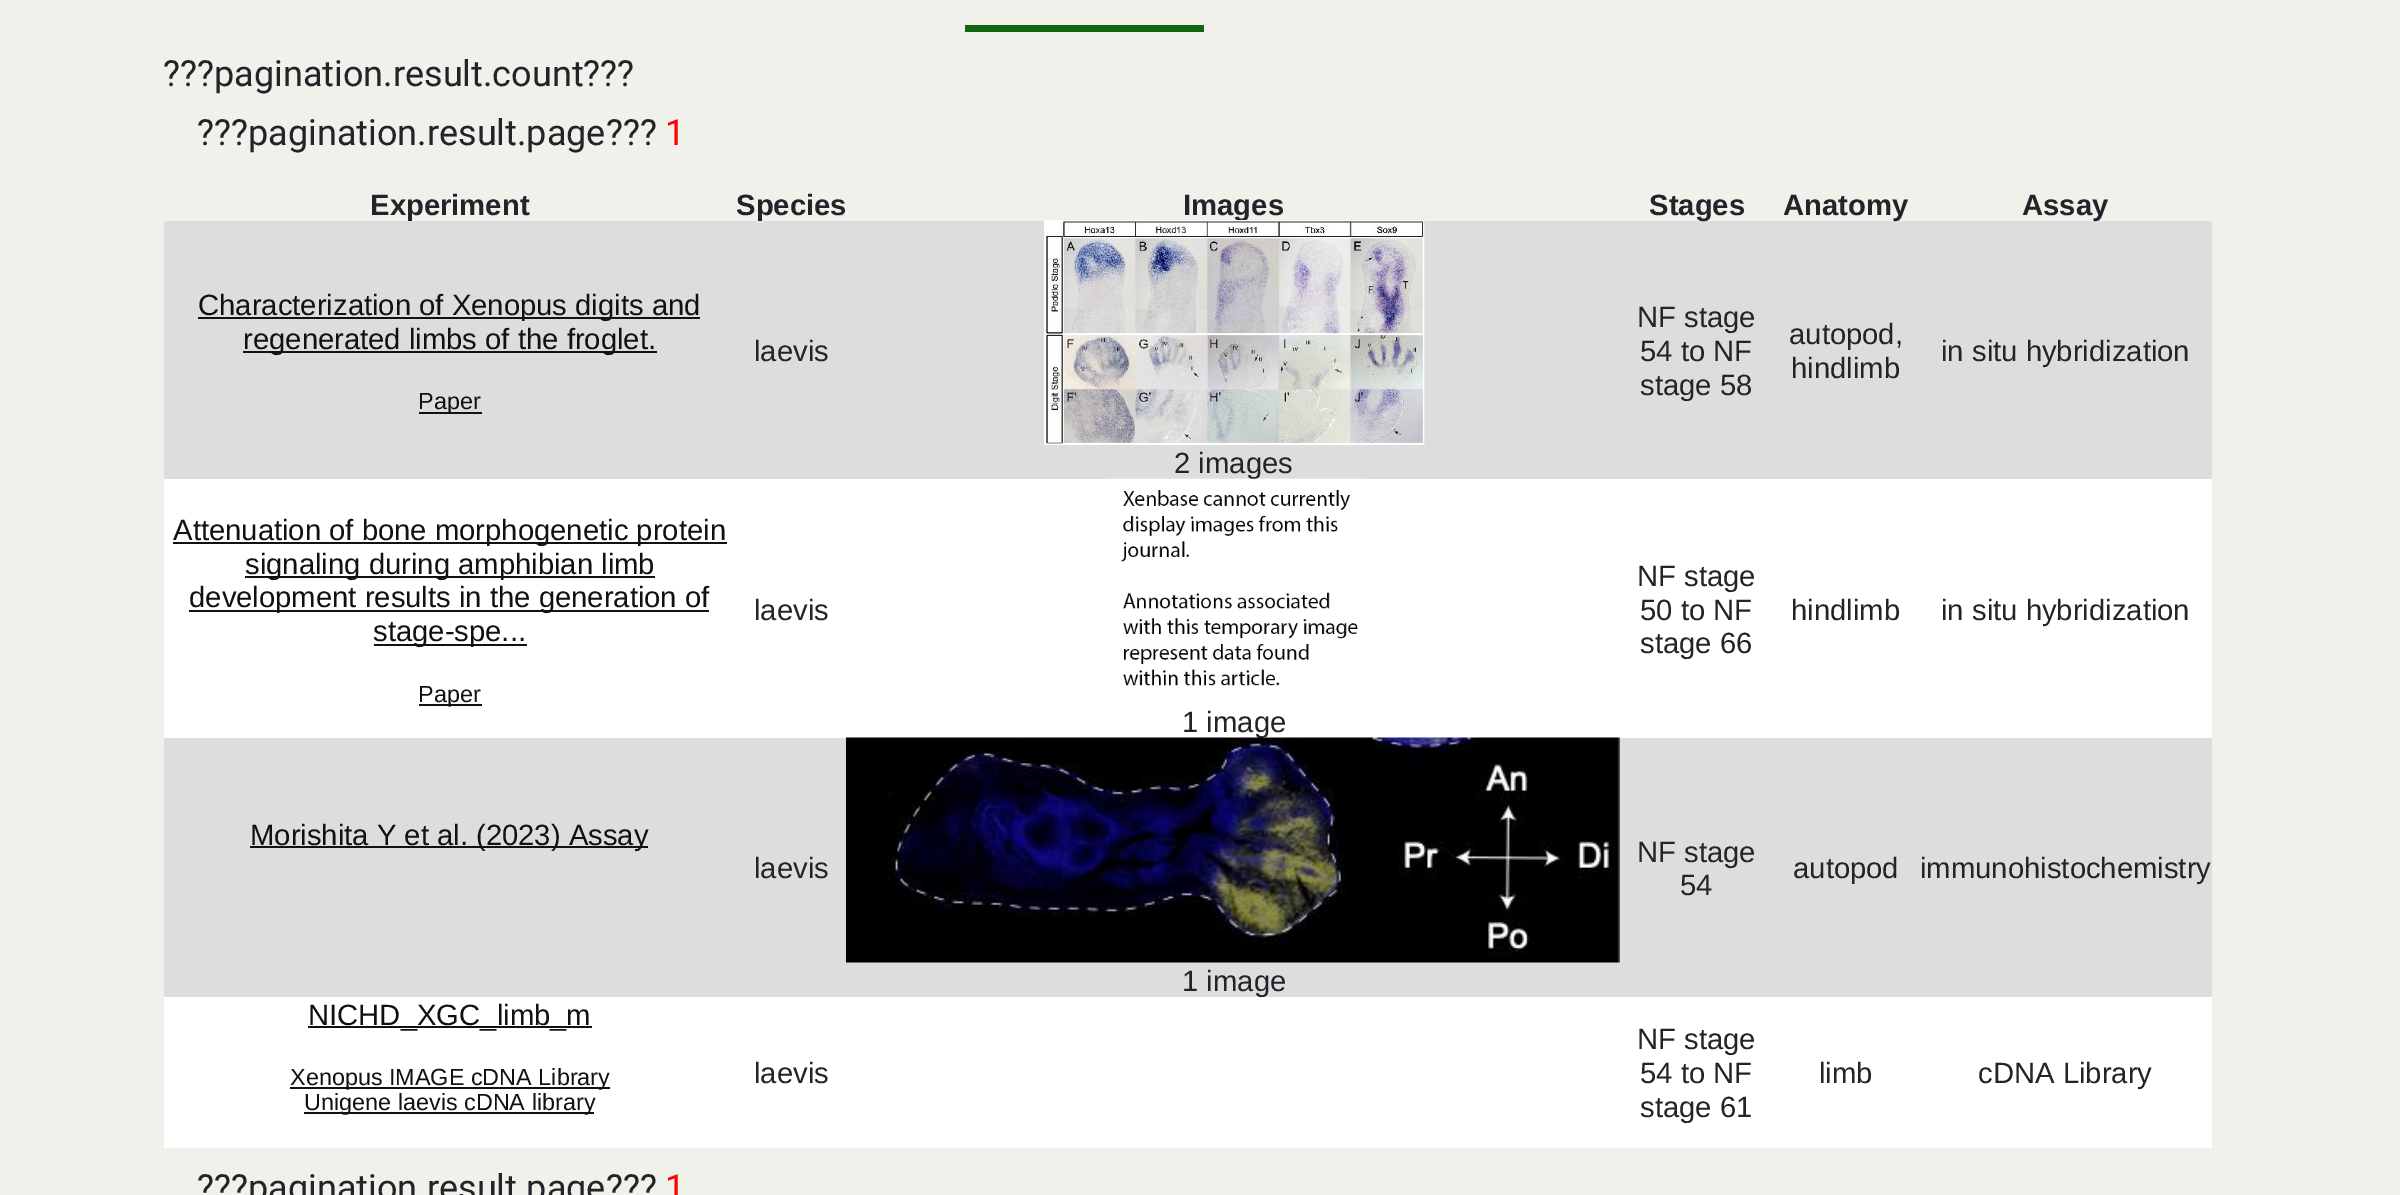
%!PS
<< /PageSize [2400 1195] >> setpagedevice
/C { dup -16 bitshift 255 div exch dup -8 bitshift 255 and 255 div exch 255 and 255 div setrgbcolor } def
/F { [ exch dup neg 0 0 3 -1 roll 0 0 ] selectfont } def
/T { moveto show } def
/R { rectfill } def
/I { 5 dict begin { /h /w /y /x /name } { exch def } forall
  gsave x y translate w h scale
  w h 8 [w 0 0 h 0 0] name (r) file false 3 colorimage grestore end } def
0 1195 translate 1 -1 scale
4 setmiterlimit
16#F0F1EA C
0 0 2400 1195 R
16#136411 C
965 25 239 7 R
/Roboto-Regular 36 F
16#212529 C
(???pagination.result.count???) 163 86 T
(???pagination.result.page???) 197 145 T
16#FF0000 C
(1) 665 145 T
16#DDDDDD C
164 221 2048 258 R
/LiberationSans-Bold 29.25 F
16#212529 C
(Experiment) 370 215 T
(Species) 736 215 T
(Images) 1183 215 T
(Stages) 1649 215 T
(Anatomy) 1783 215 T
(Assay) 2022 215 T
16#111111 C
198 317 502 2 R
/LiberationSans-Regular 29.25 F
(Characterization of Xenopus digits and) 198 315 T
243 351 414 2 R
(regenerated limbs of the froglet.) 243 349 T
419 412 63 2 R
/LiberationSans-Regular 23.4 F
(Paper) 418 409 T
/LiberationSans-Regular 29.25 F
16#212529 C
(laevis) 754 361 T
(NF stage) 1637 327 T
(54 to NF) 1640 361 T
(stage 58) 1640 395 T
(autopod,) 1789 344 T
(hindlimb) 1791 378 T
(in situ hybridization) 1941 361 T
(1.rgb) 1044 220 381 225 I
16#FFFFFF C
164 479 2048 259 R
16#212529 C
(2 images) 1174 473 T
16#111111 C
173 542 554 2 R
(Attenuation of bone morphogenetic protein) 173 540 T
245 576 410 2 R
(signaling during amphibian limb) 245 574 T
189 610 520 2 R
(development results in the generation of) 189 607 T
374 644 153 2 R
(stage-spe...) 373 641 T
419 704 63 2 R
/LiberationSans-Regular 23.4 F
(Paper) 418 702 T
/LiberationSans-Regular 29.25 F
16#212529 C
(laevis) 754 620 T
(NF stage) 1637 586 T
(50 to NF) 1640 620 T
(stage 66) 1640 653 T
(hindlimb) 1791 620 T
(in situ hybridization) 1941 620 T
(2.rgb) 1105 478 259 208 I
16#DDDDDD C
164 738 2048 259 R
16#212529 C
(1 image) 1182 732 T
16#111111 C
250 846 398 2 R
(Morishita Y et al. \(2023\) Assay) 250 845 T
16#212529 C
(laevis) 754 878 T
(NF stage) 1637 862 T
(54) 1680 895 T
(autopod) 1793 878 T
(immunohistochemistry) 1920 878 T
(3.rgb) 846 737 774 226 I
16#FFFFFF C
164 997 2048 151 R
16#212529 C
(1 image) 1182 991 T
16#111111 C
308 1026 284 2 R
(NICHD_XGC_limb_m) 308 1025 T
290 1087 320 2 R
/LiberationSans-Regular 23.4 F
(Xenopus IMAGE cDNA Library) 290 1085 T
304 1112 290 2 R
(Unigene laevis cDNA library) 304 1110 T
/LiberationSans-Regular 29.25 F
16#212529 C
(laevis) 754 1083 T
(NF stage) 1637 1049 T
(54 to NF) 1640 1083 T
(stage 61) 1640 1117 T
(limb) 1819 1083 T
(cDNA Library) 1978 1083 T
/Roboto-Regular 36 F
(???pagination.result.page???) 197 1200 T
16#FF0000 C
(1) 665 1200 T
showpage
